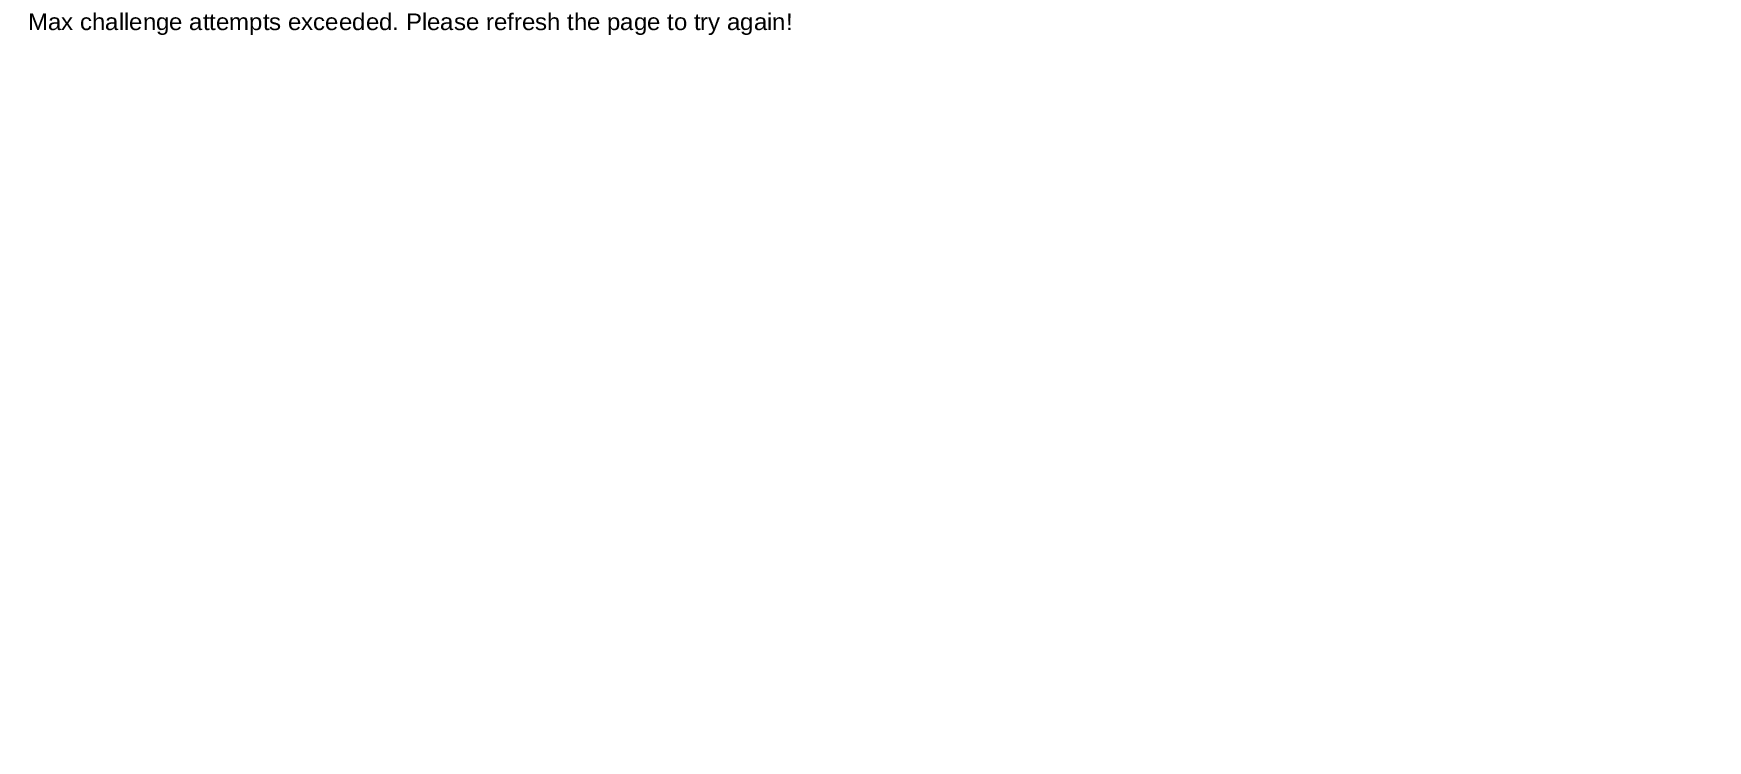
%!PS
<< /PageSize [1741 774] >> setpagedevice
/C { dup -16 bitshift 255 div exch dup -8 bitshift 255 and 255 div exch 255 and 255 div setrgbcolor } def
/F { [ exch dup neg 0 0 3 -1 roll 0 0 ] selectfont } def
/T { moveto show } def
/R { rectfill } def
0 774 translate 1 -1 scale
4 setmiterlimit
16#FFFFFF C
0 0 1741 774 R
/LiberationSans-Regular 24 F
16#000000 C
(Max challenge attempts exceeded. Please refresh the page to try again!) 28 30 T
showpage
